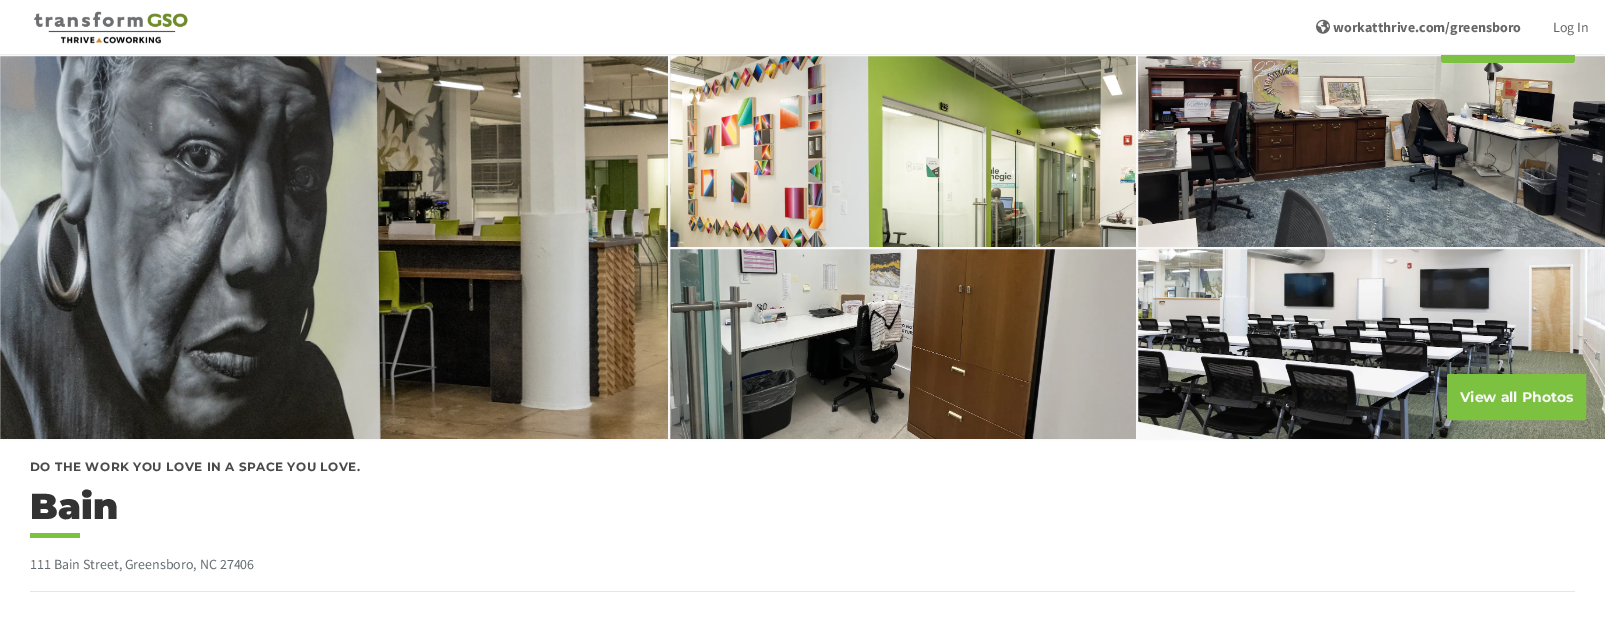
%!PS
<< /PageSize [1605 642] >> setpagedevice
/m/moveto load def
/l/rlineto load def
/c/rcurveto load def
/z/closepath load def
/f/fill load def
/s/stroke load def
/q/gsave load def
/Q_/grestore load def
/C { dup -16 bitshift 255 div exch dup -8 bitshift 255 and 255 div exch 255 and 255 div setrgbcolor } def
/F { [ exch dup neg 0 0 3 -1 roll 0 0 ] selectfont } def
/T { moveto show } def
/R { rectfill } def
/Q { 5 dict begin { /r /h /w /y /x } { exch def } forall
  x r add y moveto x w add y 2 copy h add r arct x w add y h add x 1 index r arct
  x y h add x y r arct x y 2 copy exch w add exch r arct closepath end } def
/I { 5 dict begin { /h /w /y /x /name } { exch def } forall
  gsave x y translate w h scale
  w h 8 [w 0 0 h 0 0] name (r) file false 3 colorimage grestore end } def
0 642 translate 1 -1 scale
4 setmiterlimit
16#FFFFFF C
0 0 1605 642 R
(5.rgb) 1138 56 467 191 I
16#F9F9F9 C
1137.5 55.5 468 192 rectstroke
16#7CC140 C
1441 32 m 134 0 l 0 28 l 0 1.5 -1.5 3 -3 3 c -128 0 l -1.5 0 -3 -1.5 -3 -3 c z f
16#FFFFFF C
1441 32 134 22 R
16#ECEEEF C
0 54 1605 1 R
(1.rgb) 34 11 154 33 I
(2.rgb) 1316 19 14 15 I
/SourceSansPro-Bold 14 F
16#666666 C
(workatthrive.com/greensboro) 1333 32 T
/SourceSansPro-Regular 14 F
(Log In) 1553 32 T
(3.rgb) 0 56 668 383 I
16#F9F9F9 C
-.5 55.5 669 384 rectstroke
(4.rgb) 670 56 466 191 I
669.5 55.5 467 192 rectstroke
(6.rgb) 670 249 466 190 I
669.5 248.5 467 191 rectstroke
(7.rgb) 1138 249 467 190 I
1137.5 248.5 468 191 rectstroke
16#7CC140 C
1447.5 374.5 138 45 1.5 Q q f Q_
s
/Montserrat-Bold 14 F
16#F9F9F9 C
(View all Photos) 1460 402 T
/Montserrat-Bold 12 F
16#4A4A4A C
30 471 m .5 0 (DO THE WORK YOU LOVE IN A SPACE YOU LOVE.) ashow
/Montserrat-Black 36 F
16#333333 C
(Bain) 30 519 T
16#7CC140 C
30 533 50 5 R
/SourceSansPro-Regular 14 F
16#636C72 C
(111 Bain Street, Greensboro, NC 27406) 30 569 T
16#E6E6E6 C
30 591 1545 1 R
showpage
